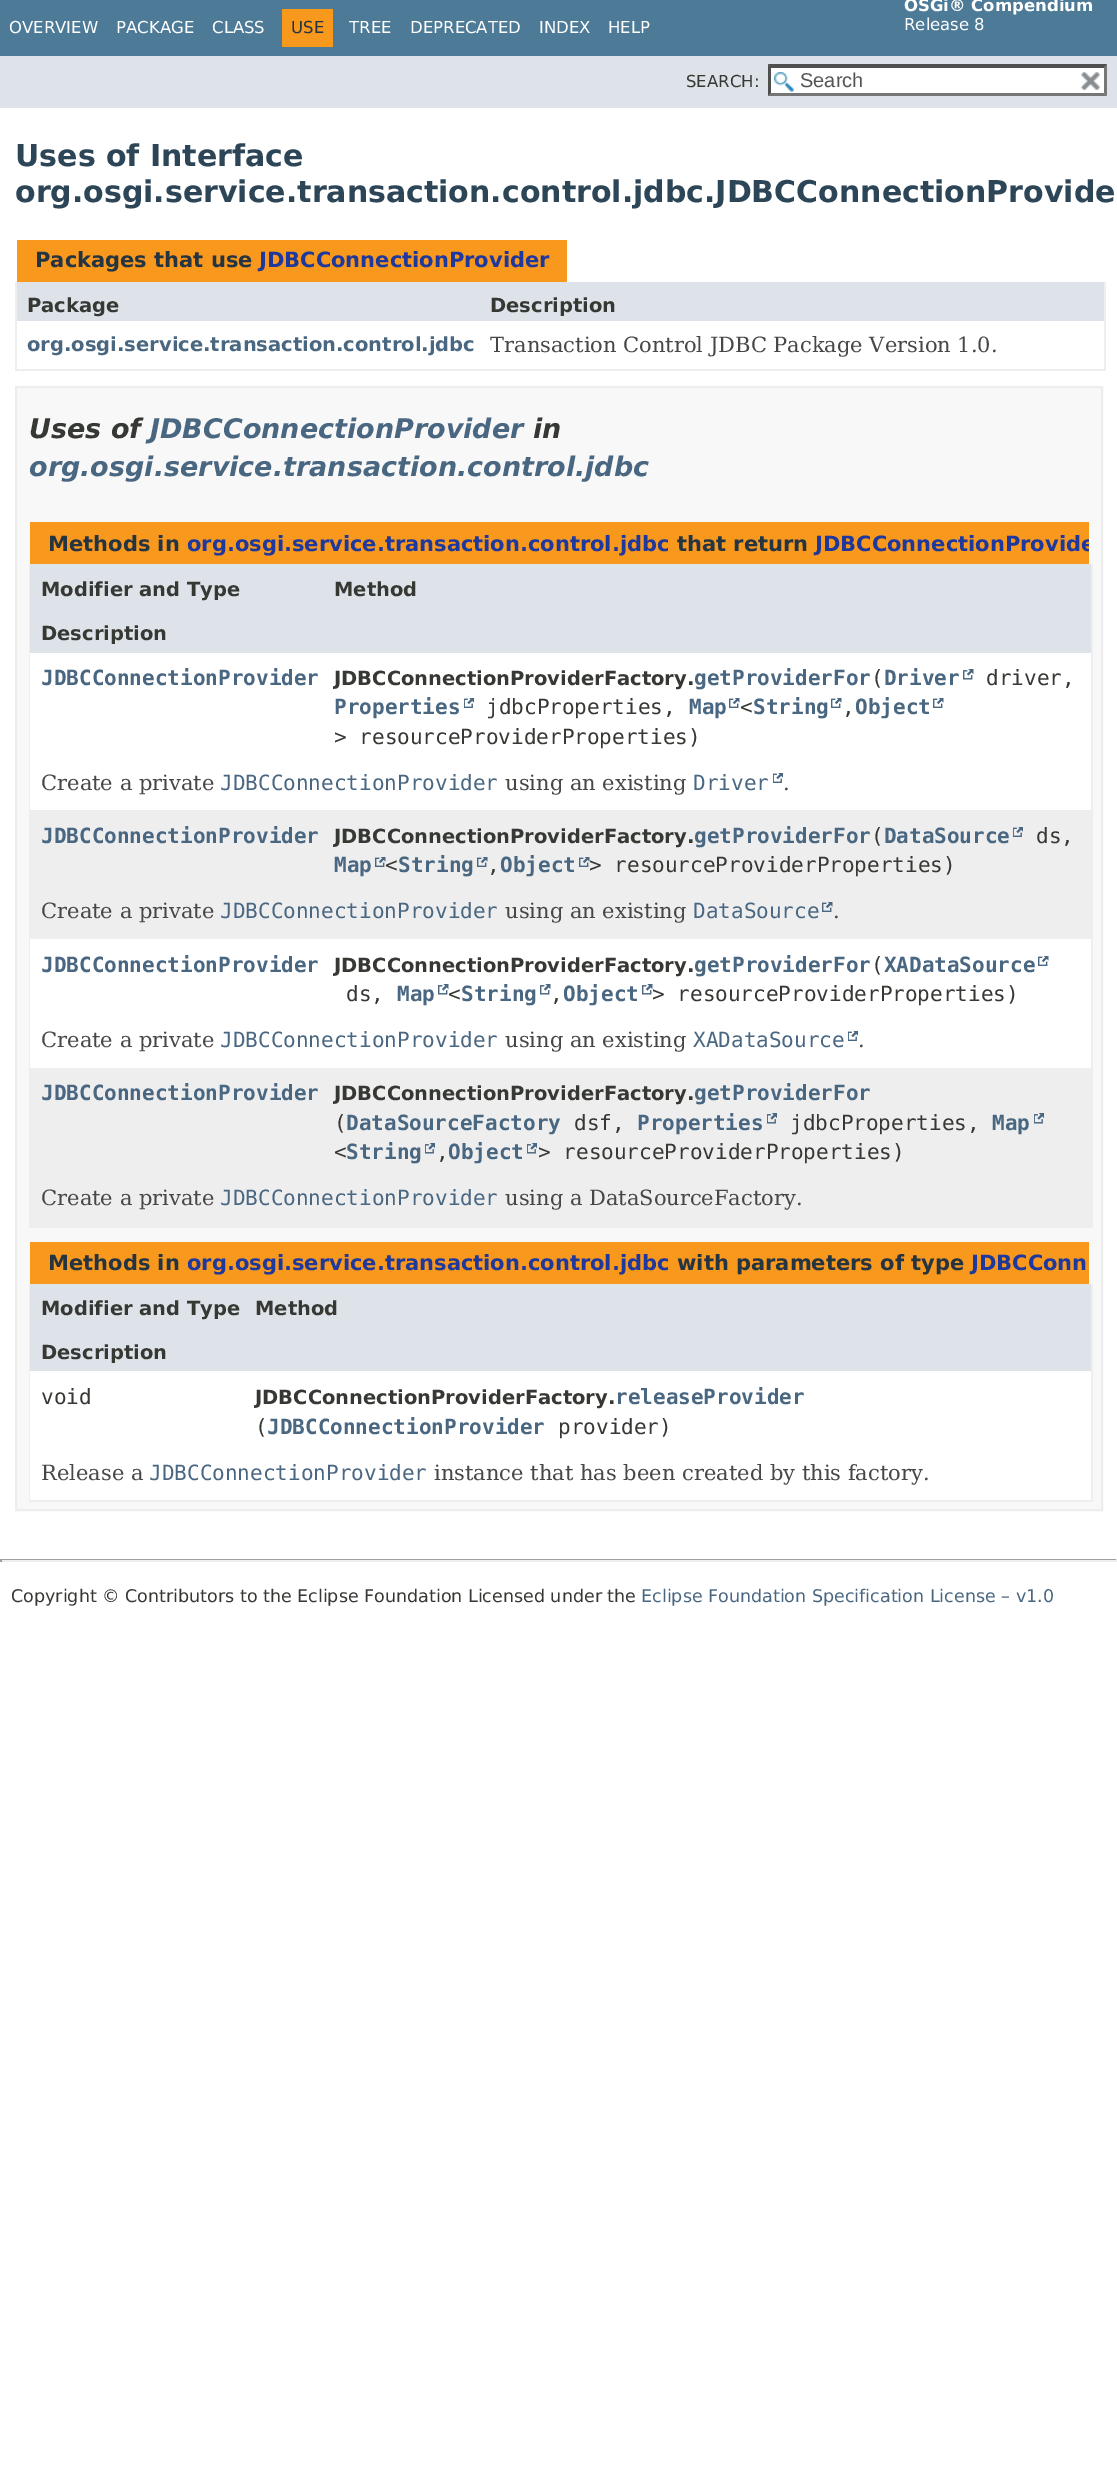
%!PS
<< /PageSize [1117 2483] >> setpagedevice
/m/moveto load def
/l/rlineto load def
/z/closepath load def
/f/fill load def
/s/stroke load def
/q/gsave load def
/Q_/grestore load def
/w/setlinewidth load def
/C { dup -16 bitshift 255 div exch dup -8 bitshift 255 and 255 div exch 255 and 255 div setrgbcolor } def
/F { [ exch dup neg 0 0 3 -1 roll 0 0 ] selectfont } def
/T { moveto show } def
/R { rectfill } def
/I { 5 dict begin { /h /w /y /x /name } { exch def } forall
  gsave x y translate w h scale
  w h 8 [w 0 0 h 0 0] name (r) file false 3 colorimage grestore end } def
0 2483 translate 1 -1 scale
4 setmiterlimit
16#FFFFFF C
0 0 1117 2483 R
16#4D7A97 C
0 0 1117 56 R
/DejaVuSans-Regular 16.5 F
16#FFFFFF C
(OVERVIEW) 9 33 T
(PACKAGE) 116 33 T
(CLASS) 212 33 T
16#F8981D C
282 9 51 38 R
16#253441 C
(USE) 291 33 T
16#FFFFFF C
(TREE) 349 33 T
(DEPRECATED) 410 33 T
(INDEX) 539 33 T
(HELP) 608 33 T
/DejaVuSans-Bold 16.5 F
(OSGi® Compendium) 904 11 T
/DejaVuSans-Regular 16.5 F
(Release 8) 904 30 T
16#DEE3E9 C
0 56 1117 52 R
16#353833 C
(SEARCH:) 686 87 T
16#FFFFFF C
768 65 339 31 R
(1.rgb) 774 72 20 20 I
16#4F4F4F C
768 64 m 339 0 l -3 4 l -333 0 l z f
16#767676 C
1107 64.5 m 0 31.5 l -3 -3 l 0 -25.5 l z f
1107 96 m -339 0 l 3 -3 l 333 0 l z f
16#4F4F4F C
768 96 m 0 -31.5 l 3 3 l 0 25.5 l z f
/LiberationSans-Regular 20 F
16#545454 C
(Search) 800 87 T
(2.rgb) 1080 72 20 19 I
/DejaVuSans-Bold 30 F
16#2C4557 C
(Uses of Interface) 15 166 T
(org.osgi.service.transaction.control.jdbc.JDBCConnectionProvide) 15 202 T
16#F8981D C
17 240 550 42 R
/DejaVuSans-Bold 21 F
16#253441 C
(Packages that use) 35 267 T
16#1F389C C
(JDBCConnectionProvider) 259 267 T
16#EEEEEE C
1104 282 2 89 R
15 369 1091 2 R
15 282 2 89 R
16#DEE3E9 C
17 282 1087 39 R
/DejaVuSans-Bold 19.5 F
16#353833 C
(Package) 27 312 T
(Description) 490 312 T
16#4A6782 C
(org.osgi.service.transaction.control.jdbc) 27 351 T
/DejaVuSerif-Regular 21 F
16#474747 C
(Transaction Control JDBC Package Version 1.0.) 490 352 T
16#F8F8F8 C
16 387 m 1086 0 l 0 1123 l -1086 0 l z q f Q_
16#EDEDED C
2 w
s
/DejaVuSans-BoldItalic 27 F
16#353833 C
(Uses of) 29 438 T
16#4A6782 C
(JDBCConnectionProvider) 150 438 T
16#353833 C
(in) 533 438 T
16#4A6782 C
(org.osgi.service.transaction.control.jdbc) 29 476 T
16#F8981D C
30 522 1059 42 R
/DejaVuSans-Bold 21 F
16#253441 C
(Methods in) 48 551 T
16#1F389C C
(org.osgi.service.transaction.control.jdbc) 187 551 T
16#253441 C
(that return) 677 551 T
q
29 507 1060 57 rectclip
16#1F389C C
(JDBCConnectionProvide) 815 551 T
Q_
16#EEEEEE C
1091 564 2 663 R
29 1226 1063 2 R
29 564 2 663 R
16#DEE3E9 C
30 564 1061 44 R
/DejaVuSans-Bold 19.5 F
16#353833 C
(Modifier and Type) 41 596 T
(Method) 334 596 T
16#DEE3E9 C
30 608 1061 45 R
16#353833 C
(Description) 41 640 T
16#FFFFFF C
30 653 1061 103 R
/DejaVuSansMono-Bold 21 F
16#4A6782 C
(JDBCConnectionProvider) 41 685 T
(getProviderFor Driver) 694 685 T
/DejaVuSansMono-Regular 21 F
16#353833 C
(\() 871 685 T
(3.rgb) 963 669 11 11 I
(driver,) 986 685 T
/DejaVuSansMono-Bold 21 F
16#4A6782 C
(Properties) 334 714 T
(4.rgb) 464 698 10 10 I
/DejaVuSansMono-Regular 21 F
16#353833 C
(jdbcProperties,) 486 714 T
/DejaVuSansMono-Bold 21 F
16#4A6782 C
(Map) 689 714 T
(5.rgb) 729 698 11 10 I
/DejaVuSansMono-Regular 21 F
16#353833 C
(<) 740 714 T
/DejaVuSansMono-Bold 21 F
16#4A6782 C
(String) 753 714 T
(5.rgb) 831 698 11 10 I
/DejaVuSansMono-Regular 21 F
16#353833 C
(,) 842 714 T
/DejaVuSansMono-Bold 21 F
16#4A6782 C
(Object) 855 714 T
(5.rgb) 933 698 11 10 I
/DejaVuSansMono-Regular 21 F
16#353833 C
(> resourceProviderProperties\)) 334 744 T
/DejaVuSans-Bold 19.5 F
(JDBCConnectionProviderFactory.) 334 685 T
16#FFFFFF C
30 756 1061 54 R
/DejaVuSerif-Regular 21 F
16#474747 C
(Create a private) 41 790 T
/DejaVuSansMono-Regular 21 F
16#4A6782 C
(JDBCConnectionProvider) 220 790 T
/DejaVuSerif-Regular 21 F
16#474747 C
(using an existing) 505 790 T
/DejaVuSansMono-Regular 21 F
16#4A6782 C
(Driver) 693 790 T
(4.rgb) 773 773 10 10 I
/DejaVuSerif-Regular 21 F
16#474747 C
(.) 783 790 T
16#EEEEEF C
31 810 1060 75 R
/DejaVuSansMono-Bold 21 F
16#4A6782 C
(JDBCConnectionProvider) 41 843 T
(getProviderFor DataSource) 694 843 T
/DejaVuSansMono-Regular 21 F
16#353833 C
(\() 871 843 T
(6.rgb) 1013 827 10 10 I
(ds,) 1036 843 T
/DejaVuSansMono-Bold 21 F
16#4A6782 C
(Map) 334 872 T
(7.rgb) 375 857 11 10 I
/DejaVuSansMono-Regular 21 F
16#353833 C
(<) 385 872 T
/DejaVuSansMono-Bold 21 F
16#4A6782 C
(String) 398 872 T
(7.rgb) 477 857 11 10 I
/DejaVuSansMono-Regular 21 F
16#353833 C
(,) 487 872 T
/DejaVuSansMono-Bold 21 F
16#4A6782 C
(Object) 500 872 T
(7.rgb) 579 857 11 10 I
/DejaVuSansMono-Regular 21 F
16#353833 C
(> resourceProviderProperties\)) 589 872 T
/DejaVuSans-Bold 19.5 F
(JDBCConnectionProviderFactory.) 334 843 T
16#EEEEEF C
31 885 1060 54 R
/DejaVuSerif-Regular 21 F
16#474747 C
(Create a private) 41 918 T
/DejaVuSansMono-Regular 21 F
16#4A6782 C
(JDBCConnectionProvider) 220 918 T
/DejaVuSerif-Regular 21 F
16#474747 C
(using an existing) 505 918 T
/DejaVuSansMono-Regular 21 F
16#4A6782 C
(DataSource) 693 918 T
(7.rgb) 822 902 11 10 I
/DejaVuSerif-Regular 21 F
16#474747 C
(.) 833 918 T
16#FFFFFF C
30 939 1061 75 R
/DejaVuSansMono-Bold 21 F
16#4A6782 C
(JDBCConnectionProvider) 41 972 T
(getProviderFor XADataSource) 694 972 T
/DejaVuSansMono-Regular 21 F
16#353833 C
(\() 871 972 T
(5.rgb) 1038 956 11 10 I
(ds,) 346 1001 T
/DejaVuSansMono-Bold 21 F
16#4A6782 C
(Map) 397 1001 T
(3.rgb) 438 984 11 11 I
/DejaVuSansMono-Regular 21 F
16#353833 C
(<) 448 1001 T
/DejaVuSansMono-Bold 21 F
16#4A6782 C
(String) 461 1001 T
(3.rgb) 540 984 11 11 I
/DejaVuSansMono-Regular 21 F
16#353833 C
(,) 550 1001 T
/DejaVuSansMono-Bold 21 F
16#4A6782 C
(Object) 563 1001 T
(3.rgb) 642 984 11 11 I
/DejaVuSansMono-Regular 21 F
16#353833 C
(> resourceProviderProperties\)) 652 1001 T
/DejaVuSans-Bold 19.5 F
(JDBCConnectionProviderFactory.) 334 972 T
16#FFFFFF C
30 1014 1061 54 R
/DejaVuSerif-Regular 21 F
16#474747 C
(Create a private) 41 1047 T
/DejaVuSansMono-Regular 21 F
16#4A6782 C
(JDBCConnectionProvider) 220 1047 T
/DejaVuSerif-Regular 21 F
16#474747 C
(using an existing) 505 1047 T
/DejaVuSansMono-Regular 21 F
16#4A6782 C
(XADataSource) 693 1047 T
(4.rgb) 848 1031 10 10 I
/DejaVuSerif-Regular 21 F
16#474747 C
(.) 858 1047 T
16#EEEEEF C
31 1068 1060 104 R
/DejaVuSansMono-Bold 21 F
16#4A6782 C
(JDBCConnectionProvider) 41 1100 T
(getProviderFor) 694 1100 T
/DejaVuSansMono-Regular 21 F
16#353833 C
(\() 334 1130 T
/DejaVuSansMono-Bold 21 F
16#4A6782 C
(DataSourceFactory) 346 1130 T
/DejaVuSansMono-Regular 21 F
16#353833 C
(dsf,) 574 1130 T
/DejaVuSansMono-Bold 21 F
16#4A6782 C
(Properties) 637 1130 T
(8.rgb) 767 1113 10 11 I
/DejaVuSansMono-Regular 21 F
16#353833 C
(jdbcProperties,) 790 1130 T
/DejaVuSansMono-Bold 21 F
16#4A6782 C
(Map) 992 1130 T
(8.rgb) 1034 1113 10 11 I
/DejaVuSansMono-Regular 21 F
16#353833 C
(<) 334 1159 T
/DejaVuSansMono-Bold 21 F
16#4A6782 C
(String) 346 1159 T
(8.rgb) 425 1143 10 11 I
/DejaVuSansMono-Regular 21 F
16#353833 C
(,) 436 1159 T
/DejaVuSansMono-Bold 21 F
16#4A6782 C
(Object) 448 1159 T
(8.rgb) 527 1143 10 11 I
/DejaVuSansMono-Regular 21 F
16#353833 C
(> resourceProviderProperties\)) 538 1159 T
/DejaVuSans-Bold 19.5 F
(JDBCConnectionProviderFactory.) 334 1100 T
16#EEEEEF C
31 1172 1060 54 R
/DejaVuSerif-Regular 21 F
16#474747 C
(Create a private) 41 1205 T
/DejaVuSansMono-Regular 21 F
16#4A6782 C
(JDBCConnectionProvider) 220 1205 T
/DejaVuSerif-Regular 21 F
16#474747 C
(using a DataSourceFactory.) 505 1205 T
16#F8981D C
30 1242 1059 42 R
/DejaVuSans-Bold 21 F
16#253441 C
(Methods in) 48 1270 T
16#1F389C C
(org.osgi.service.transaction.control.jdbc) 187 1270 T
16#253441 C
(with parameters of type) 677 1270 T
16#1F389C C
(JDBCConn) 971 1270 T
16#EEEEEE C
1091 1284 2 218 R
29 1500 1063 2 R
29 1284 2 218 R
16#DEE3E9 C
30 1284 1061 44 R
/DejaVuSans-Bold 19.5 F
16#353833 C
(Modifier and Type) 41 1315 T
(Method) 255 1315 T
16#DEE3E9 C
30 1328 1061 43 R
16#353833 C
(Description) 41 1359 T
16#FFFFFF C
30 1371 1061 77 R
/DejaVuSansMono-Regular 21 F
16#353833 C
(void) 41 1404 T
/DejaVuSans-Bold 19.5 F
(JDBCConnectionProviderFactory.) 255 1404 T
/DejaVuSansMono-Bold 21 F
16#4A6782 C
(releaseProvider) 615 1404 T
/DejaVuSansMono-Regular 21 F
16#353833 C
(\() 255 1434 T
/DejaVuSansMono-Bold 21 F
16#4A6782 C
(JDBCConnectionProvider) 267 1434 T
/DejaVuSansMono-Regular 21 F
16#353833 C
(provider\)) 558 1434 T
16#FFFFFF C
30 1448 1061 52 R
/DejaVuSerif-Regular 21 F
16#474747 C
(Release a) 41 1480 T
/DejaVuSansMono-Regular 21 F
16#4A6782 C
(JDBCConnectionProvider) 149 1480 T
/DejaVuSerif-Regular 21 F
16#474747 C
(instance that has been created by this factory.) 434 1480 T
16#9F9F9F C
0 1559 1117 1 R
16#EEEEEE C
1116 1559 1 3 R
0 1560 1117 2 R
16#9F9F9F C
0 1559 2 3 R
/DejaVuSans-Regular 17.5 F
16#353833 C
(Copyright © Contributors to the Eclipse Foundation Licensed under the) 11 1602 T
16#4A6782 C
(Eclipse Foundation Specification License – v1.0) 641 1602 T
showpage
